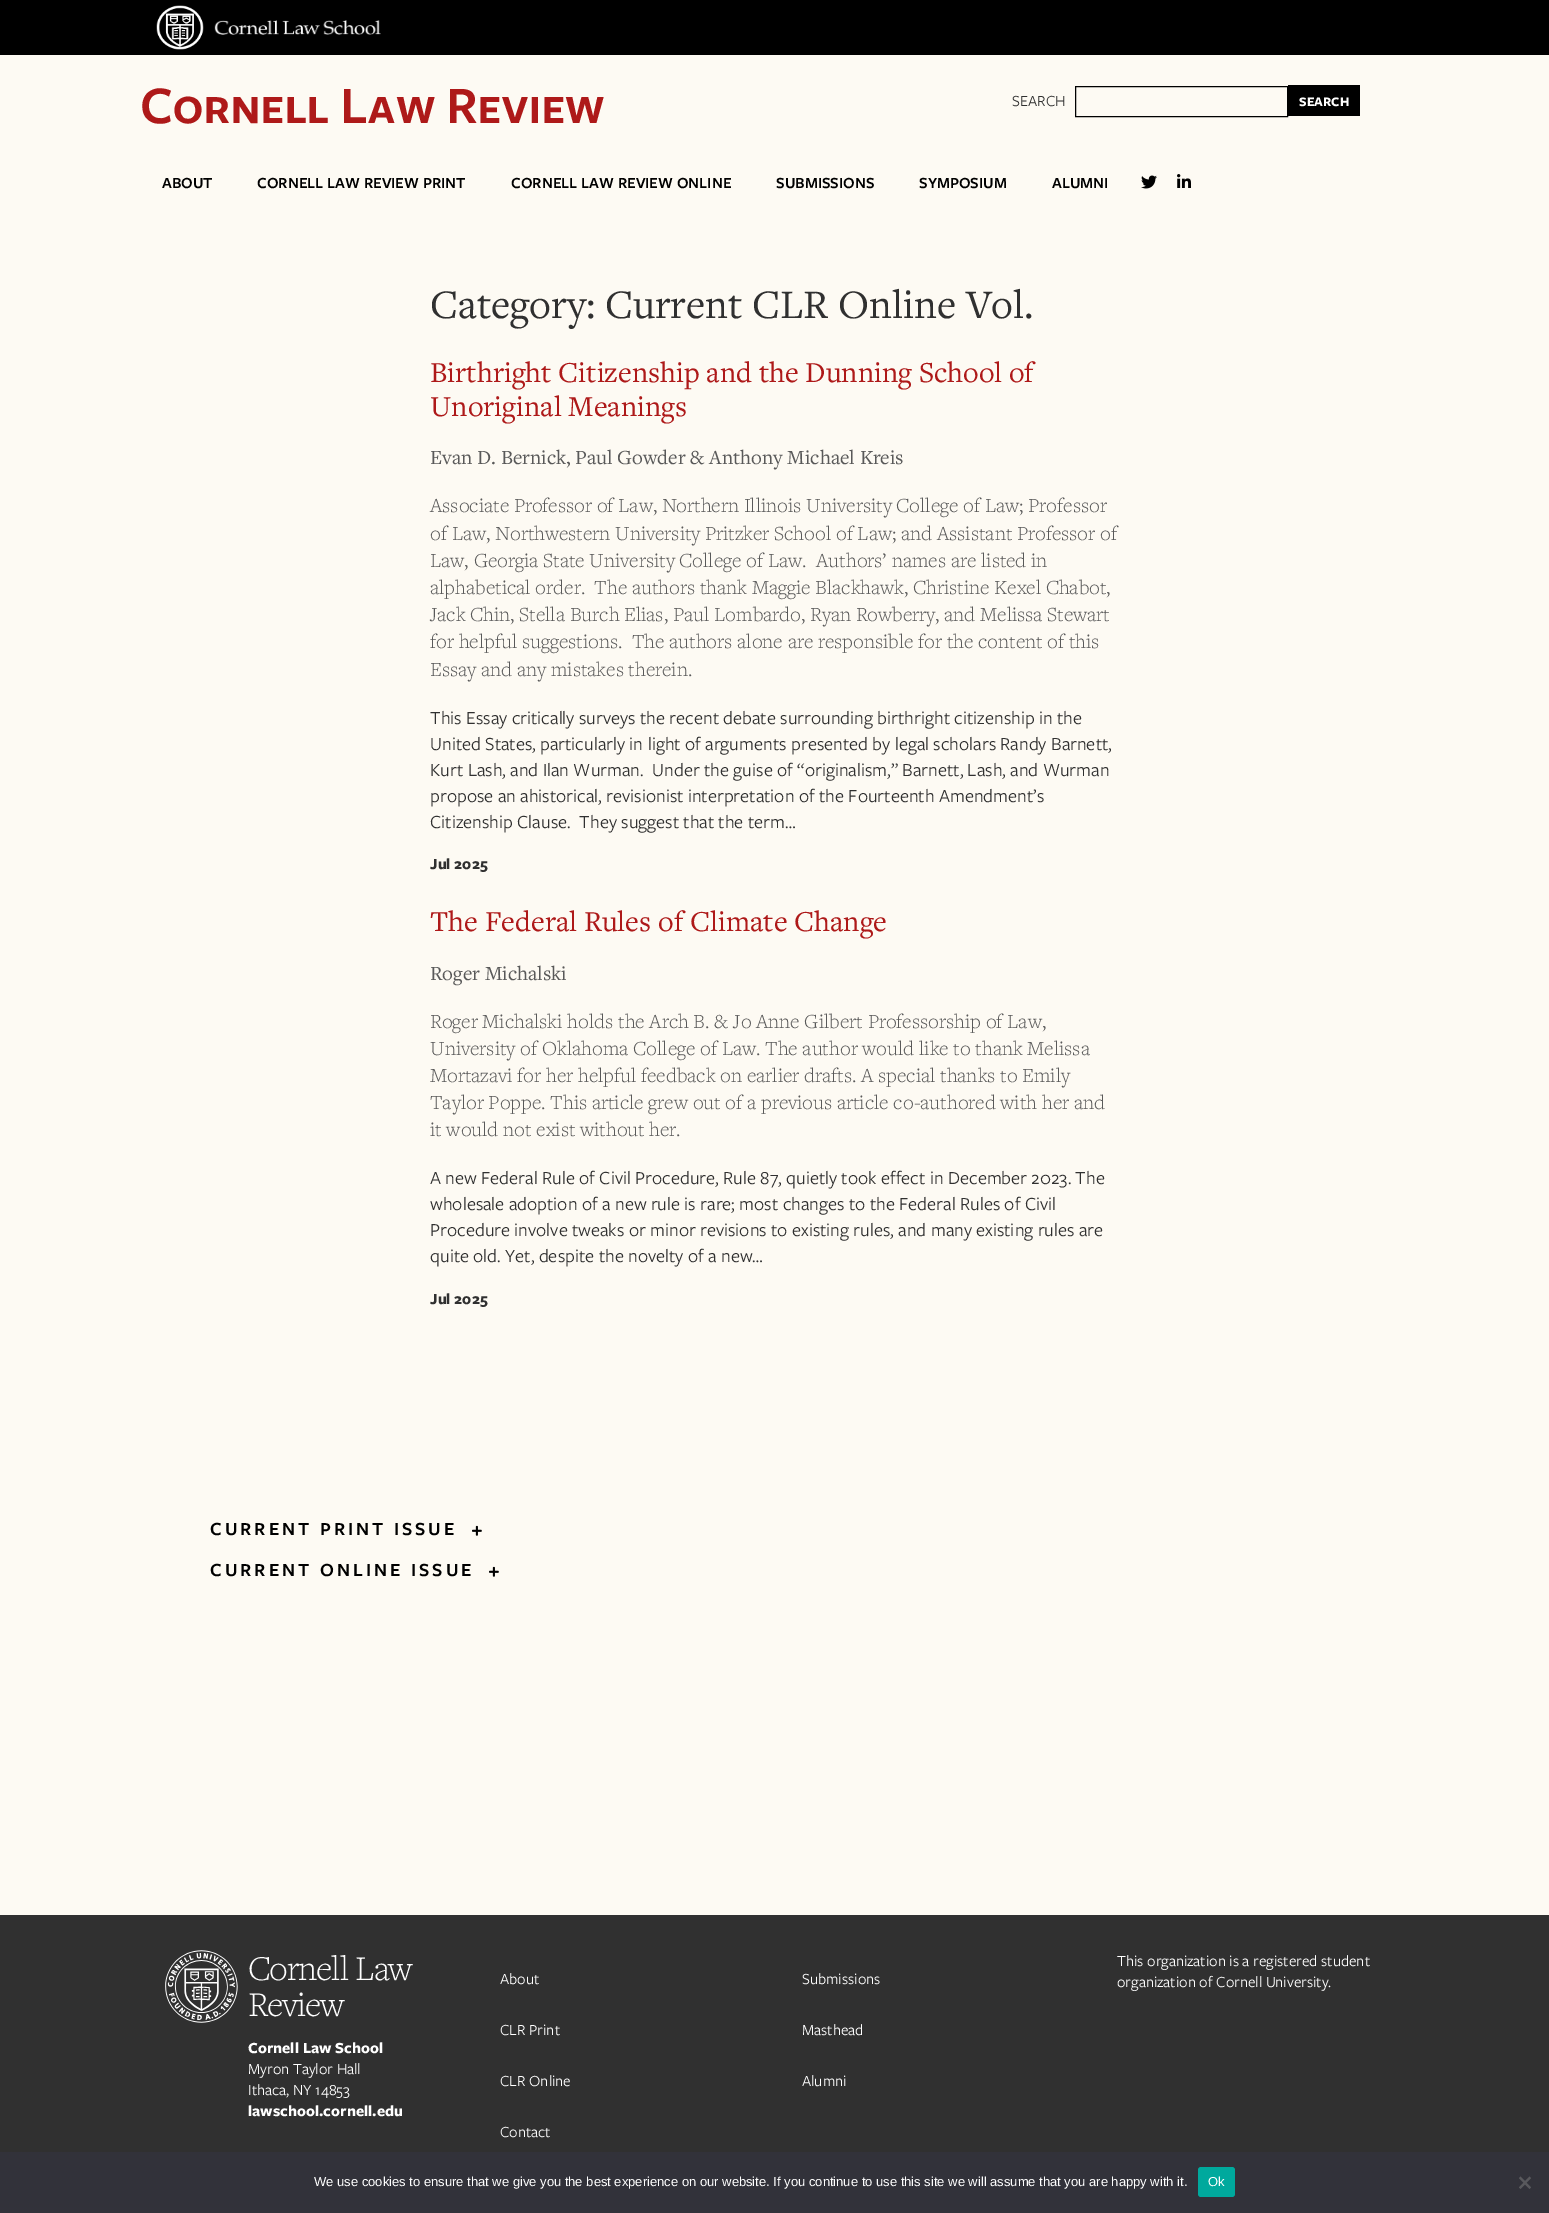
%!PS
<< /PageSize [1549 2213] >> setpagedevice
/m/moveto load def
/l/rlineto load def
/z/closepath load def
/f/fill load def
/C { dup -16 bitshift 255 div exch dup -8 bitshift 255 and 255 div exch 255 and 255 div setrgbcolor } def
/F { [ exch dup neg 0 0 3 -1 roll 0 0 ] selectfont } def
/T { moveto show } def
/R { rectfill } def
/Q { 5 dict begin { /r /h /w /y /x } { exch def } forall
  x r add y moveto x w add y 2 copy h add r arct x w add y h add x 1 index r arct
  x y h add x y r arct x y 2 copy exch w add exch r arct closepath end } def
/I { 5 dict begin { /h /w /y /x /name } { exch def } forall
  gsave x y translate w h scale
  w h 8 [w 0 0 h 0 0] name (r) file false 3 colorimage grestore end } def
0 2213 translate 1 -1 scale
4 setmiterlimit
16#FDFAF3 C
0 0 1549 2213 R
16#000000 C
0 0 1549 55 R
(1.rgb) 156 5 48 45 I
(2.rgb) 214 20 167 15 I
/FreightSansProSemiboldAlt-SemiBold 54.5 F
16#AE1919 C
140 123 m -1 0 (Cornell Law Review) ashow
/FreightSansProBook-Regular 16 F
16#303030 C
(SEARCH) 1012 106 T
16#000000 C
1075.5 86.5 212 30 rectstroke
1288 85 72 31 R
/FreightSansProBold-Bold 13.5 F
16#FFFFFF C
(SEARCH) 1299 106 T
/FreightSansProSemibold-SemiBold 16 F
16#000000 C
(ABOUT) 162 188 T
(CORNELL LAW REVIEW PRINT) 257 188 T
(CORNELL LAW REVIEW ONLINE) 511 188 T
(SUBMISSIONS) 776 188 T
(SYMPOSIUM) 919 188 T
(ALUMNI) 1052 188 T
(3.rgb) 1141 175 16 14 I
(4.rgb) 1177 174 14 14 I
/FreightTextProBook-Regular 42 F
16#303030 C
(Category: Current CLR Online Vol.) 430 318 T
/FreightTextProBook-Regular 30 F
16#AE1919 C
(Birthright Citizenship and the Dunning School of) 430 382 T
(Unoriginal Meanings) 430 416 T
/FreightTextProBook-Regular 20.8 F
16#595959 C
(Evan D. Bernick, Paul Gowder & Anthony Michael Kreis) 430 464 T
/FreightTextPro-Light 20.8 F
(Associate Professor of Law, Northern Illinois University College of Law; Professor) 430 512 T
(of Law, Northwestern University Pritzker School of Law; and Assistant Professor of) 430 540 T
(Law, Georgia State University College of Law.  Authors’ names are listed in) 430 567 T
(alphabetical order.  The authors thank Maggie Blackhawk, Christine Kexel Chabot,) 430 594 T
(Jack Chin, Stella Burch Elias, Paul Lombardo, Ryan Rowberry, and Melissa Stewart) 430 621 T
(for helpful suggestions.  The authors alone are responsible for the content of this) 430 648 T
(Essay and any mistakes therein.) 430 676 T
/FreightSansProBook-Regular 19.2 F
16#303030 C
(This Essay critically surveys the recent debate surrounding birthright citizenship in the) 430 724 T
(United States, particularly in light of arguments presented by legal scholars Randy Barnett,) 430 750 T
(Kurt Lash, and Ilan Wurman.  Under the guise of “originalism,” Barnett, Lash, and Wurman) 430 776 T
(propose an ahistorical, revisionist interpretation of the Fourteenth Amendment’s) 430 802 T
(Citizenship Clause.  They suggest that the term…) 430 828 T
/FreightSansProBold-Bold 16 F
(Jul 2025) 430 869 T
/FreightTextProBook-Regular 30 F
16#AE1919 C
(The Federal Rules of Climate Change) 430 931 T
/FreightTextProBook-Regular 20.8 F
16#595959 C
(Roger Michalski) 430 980 T
/FreightTextPro-Light 20.8 F
(Roger Michalski holds the Arch B. & Jo Anne Gilbert Professorship of Law,) 430 1028 T
(University of Oklahoma College of Law. The author would like to thank Melissa) 430 1055 T
(Mortazavi for her helpful feedback on earlier drafts. A special thanks to Emily) 430 1082 T
(Taylor Poppe. This article grew out of a previous article co-authored with her and) 430 1109 T
(it would not exist without her.) 430 1136 T
/FreightSansProBook-Regular 19.2 F
16#303030 C
(A new Federal Rule of Civil Procedure, Rule 87, quietly took effect in December 2023. The) 430 1184 T
(wholesale adoption of a new rule is rare; most changes to the Federal Rules of Civil) 430 1210 T
(Procedure involve tweaks or minor revisions to existing rules, and many existing rules are) 430 1236 T
(quite old. Yet, despite the novelty of a new…) 430 1262 T
/FreightSansProBold-Bold 16 F
(Jul 2025) 430 1304 T
/FreightSansProSemibold-SemiBold 19.2 F
16#000000 C
210 1535 m 3 0 (CURRENT PRINT ISSUE) ashow
(5.rgb) 472 1525 10 11 I
210 1576 m 3 0 (CURRENT ONLINE ISSUE) ashow
(5.rgb) 489 1566 10 11 I
16#303030 C
0 1915 1549 237 R
(6.rgb) 165 1950 73 73 I
/FreightTextPro-Light 36 F
16#FFFFFF C
248 1980 m -1 0 (Cornell Law) ashow
248 2016 m -1 0 (Review) ashow
/FreightSansProBold-Bold 16 F
(Cornell Law School) 248 2053 T
/FreightSansProBook-Regular 16 F
(Myron Taylor Hall) 248 2074 T
(Ithaca, NY 14853) 248 2095 T
/FreightSansProBold-Bold 16 F
(lawschool.cornell.edu) 248 2116 T
/FreightSansProBook-Regular 16 F
(About) 500 1984 T
(Submissions) 802 1984 T
(CLR Print) 500 2035 T
(Masthead) 802 2035 T
(CLR Online) 500 2086 T
(Alumni) 802 2086 T
(Contact) 500 2137 T
(This organization is a registered student) 1117 1966 T
(organization of Cornell University.) 1117 1987 T
16#32323A C
0 2152 1549 61 R
/LiberationSans-Regular 13 F
16#FFFFFF C
(We use cookies to ensure that we give you the best experience on our website. If you continue to use this site we will assume that you are happy with it.) 314 2186 T
16#00A99D C
1198 2167 37 30 3 Q f
16#FFFFFF C
(Ok) 1208 2186 T
16#59595D C
1529.5 2176.5 m 1.5 1.5 l -10.5 11 l -1.5 -1.5 l z f
1519 2178 m 1.5 -1.5 l 10.5 11 l -1.5 1.5 l z f
showpage
